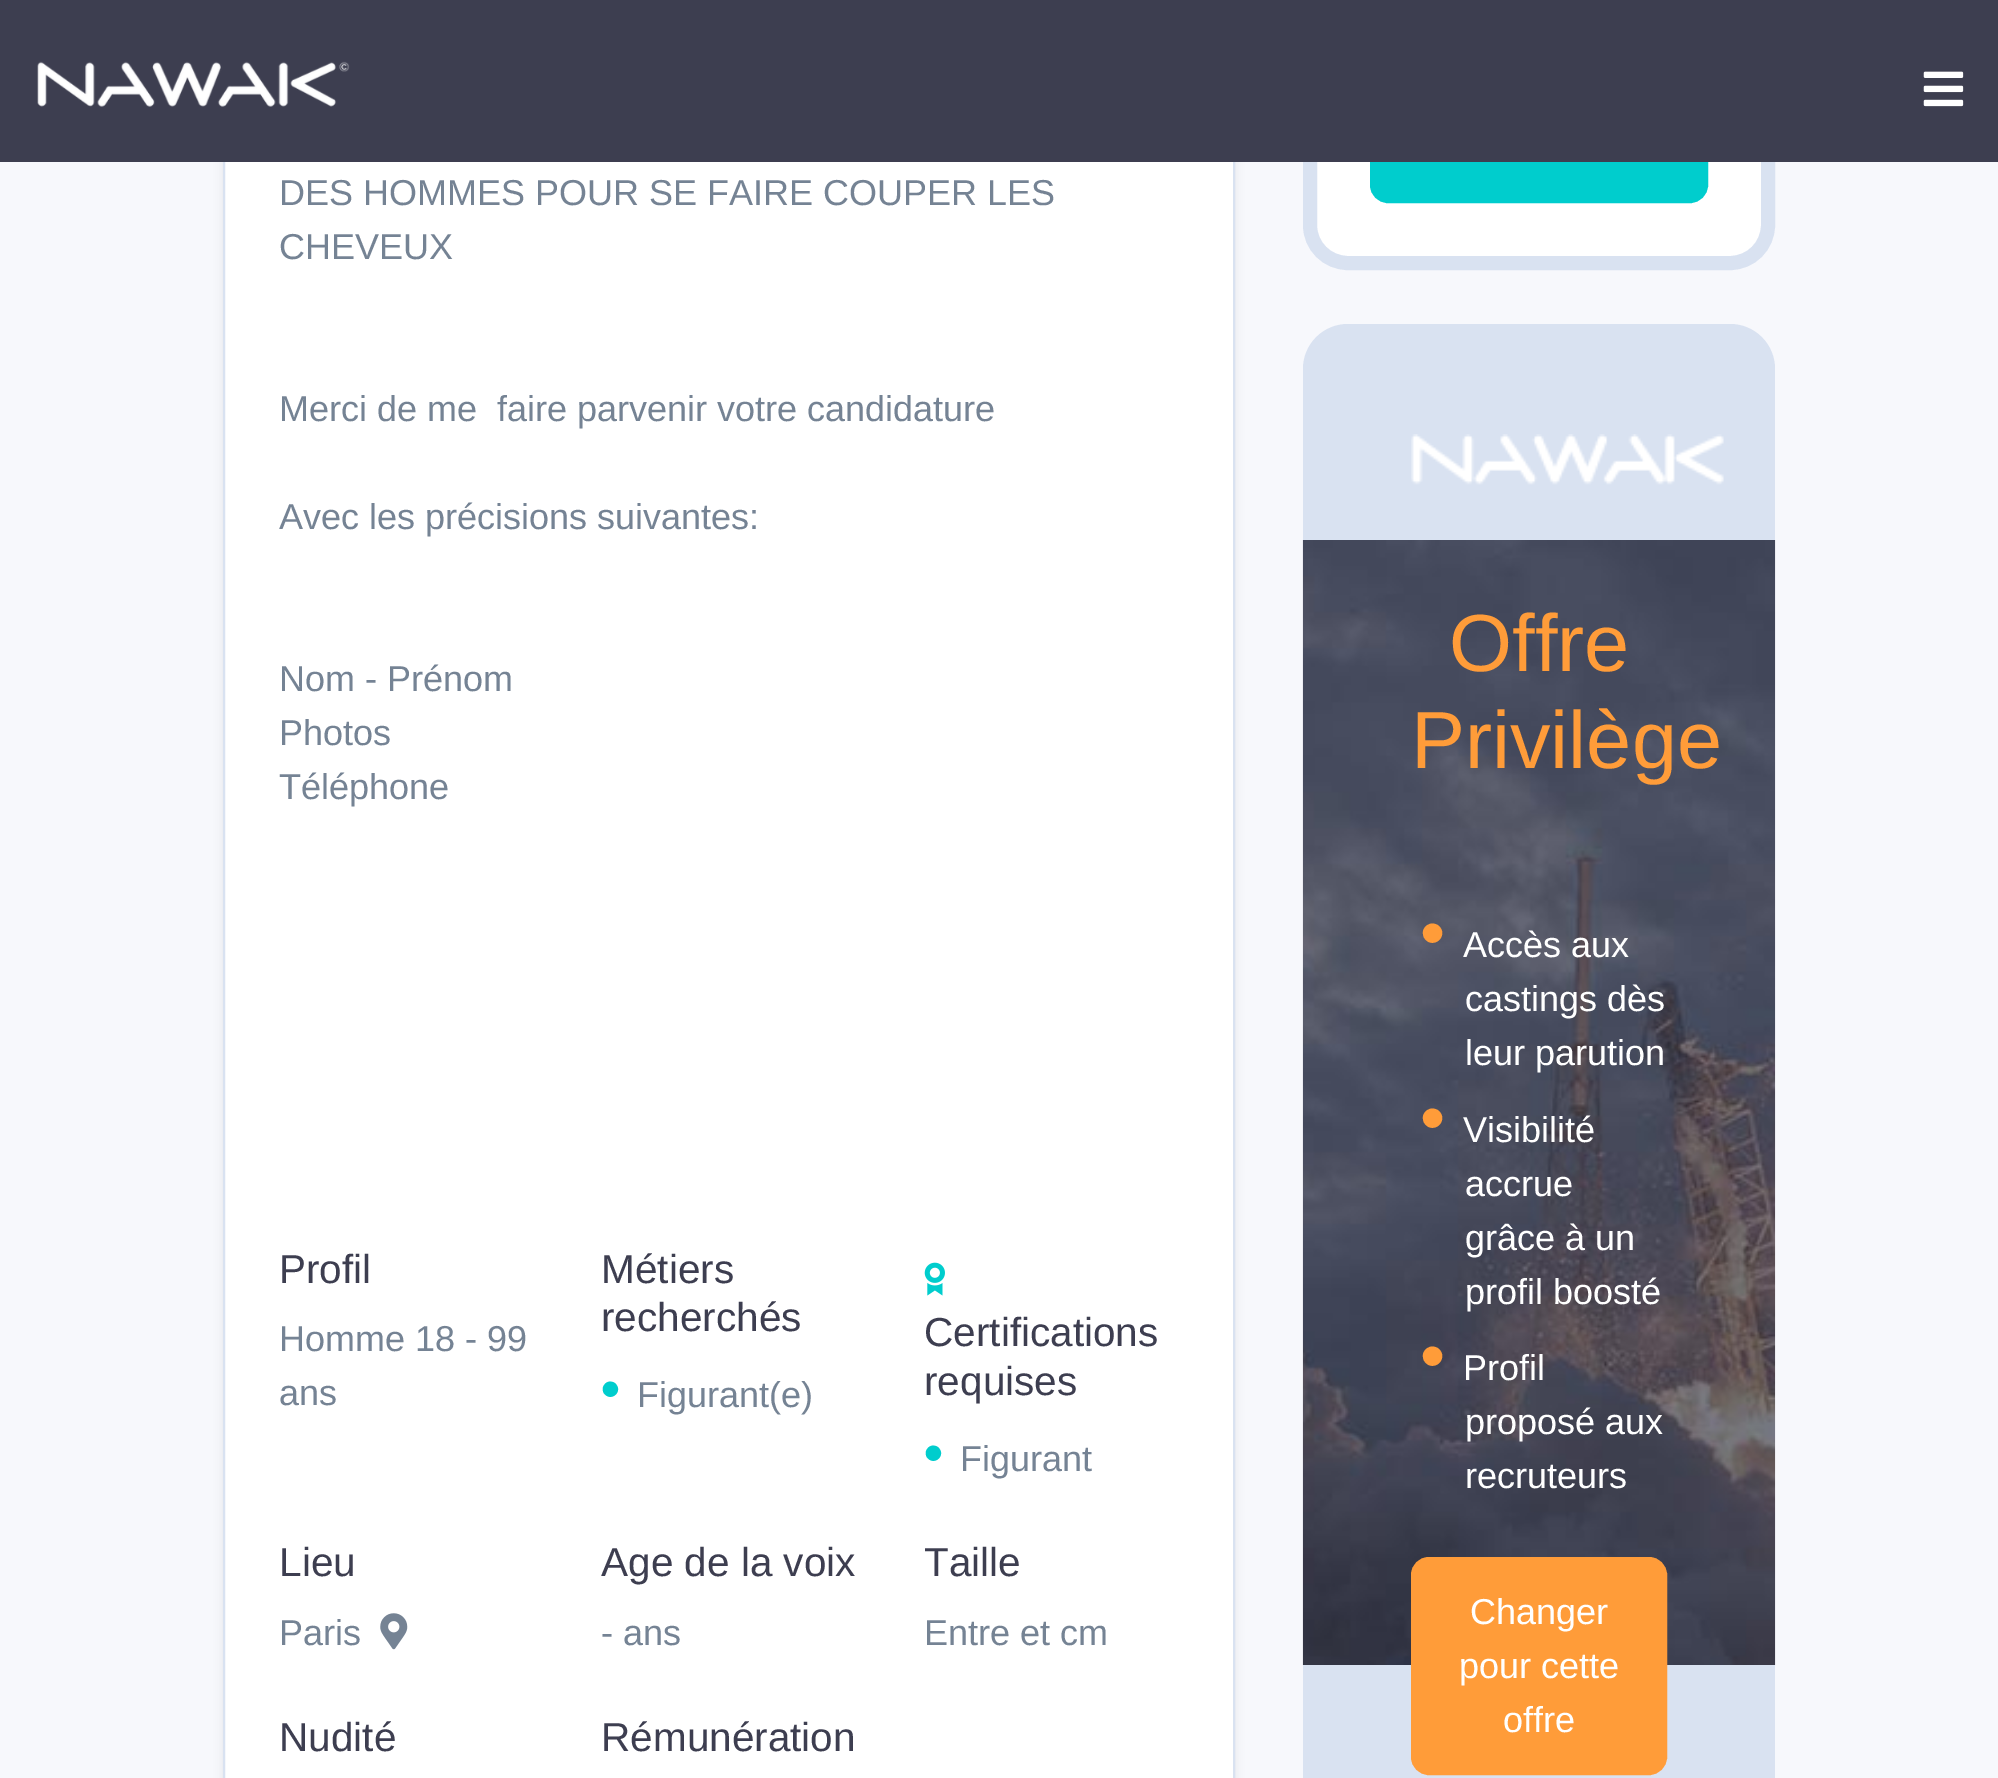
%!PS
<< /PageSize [1998 1778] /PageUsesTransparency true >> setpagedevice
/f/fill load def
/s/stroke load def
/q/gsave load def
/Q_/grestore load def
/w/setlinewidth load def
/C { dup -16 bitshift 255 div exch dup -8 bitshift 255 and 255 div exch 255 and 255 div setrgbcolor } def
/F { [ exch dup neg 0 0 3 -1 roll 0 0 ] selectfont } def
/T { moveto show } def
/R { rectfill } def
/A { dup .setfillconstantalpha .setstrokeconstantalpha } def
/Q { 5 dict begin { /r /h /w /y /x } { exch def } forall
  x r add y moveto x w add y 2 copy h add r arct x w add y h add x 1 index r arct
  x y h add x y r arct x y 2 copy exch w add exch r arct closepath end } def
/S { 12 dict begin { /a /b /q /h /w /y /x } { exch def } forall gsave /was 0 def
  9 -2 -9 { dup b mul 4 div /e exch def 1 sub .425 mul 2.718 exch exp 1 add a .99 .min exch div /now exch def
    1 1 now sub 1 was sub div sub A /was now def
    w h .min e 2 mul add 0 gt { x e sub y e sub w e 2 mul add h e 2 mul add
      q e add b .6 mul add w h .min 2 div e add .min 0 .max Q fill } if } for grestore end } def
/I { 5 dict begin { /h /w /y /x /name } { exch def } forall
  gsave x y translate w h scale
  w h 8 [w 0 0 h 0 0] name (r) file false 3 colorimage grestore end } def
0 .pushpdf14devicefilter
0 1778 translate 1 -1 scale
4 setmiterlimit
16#F7F8FC C
0 0 1998 1778 R
16#000000 C
223 -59 1012 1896 45 4.5 .07 S
16#FFFFFF C
225 162 1008 1616 R
16#D9E2F1 C
2 w
224 -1 1010 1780 rectstroke
16#FFFFFF C
1310 -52 458 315 38 Q q f Q_
16#D9E2F1 C
14 w
s
16#00CDCD C
1371 39 336 163 17 Q q f Q_
2 w
s
16#3D3E50 C
0 0 1998 162 R
(1.rgb) 37 61 313 46 I
(2.rgb) 1923 71 41 36 I
/LiberationSans-Regular 36 F
16#758394 C
(DES HOMMES POUR SE FAIRE COUPER LES) 279 205 T
(CHEVEUX) 279 259 T
(Merci de me  faire parvenir votre candidature) 279 421 T
(Avec les précisions suivantes:) 279 529 T
(Nom - Prénom) 279 691 T
(Photos) 279 745 T
(Téléphone) 279 799 T
/LiberationSans-Regular 40.5 F
16#3D3E50 C
(Profil) 279 1283 T
/LiberationSans-Regular 36 F
16#758394 C
(Homme 18 - 99) 279 1351 T
(ans) 279 1405 T
/LiberationSans-Regular 40.5 F
16#3D3E50 C
(Métiers) 601 1283 T
(recherchés) 601 1331 T
/LiberationSans-Bold 54 F
16#00CDCD C
(•) 601 1407 T
/LiberationSans-Regular 36 F
16#758394 C
(Figurant\(e\)) 637 1407 T
(3.rgb) 924 1262 21 34 I
/LiberationSans-Regular 40.5 F
16#3D3E50 C
(Certifications) 924 1346 T
(requises) 924 1395 T
/LiberationSans-Bold 54 F
16#00CDCD C
(•) 924 1471 T
/LiberationSans-Regular 36 F
16#758394 C
(Figurant) 960 1471 T
/LiberationSans-Regular 40.5 F
16#3D3E50 C
(Lieu) 279 1576 T
/LiberationSans-Regular 36 F
16#758394 C
(Paris) 279 1645 T
(4.rgb) 380 1613 28 37 I
/LiberationSans-Regular 40.5 F
16#3D3E50 C
(Age de la voix) 601 1576 T
/LiberationSans-Regular 36 F
16#758394 C
(- ans) 601 1645 T
/LiberationSans-Regular 40.5 F
16#3D3E50 C
(Taille) 924 1576 T
/LiberationSans-Regular 36 F
16#758394 C
(Entre et cm) 924 1645 T
/LiberationSans-Regular 40.5 F
16#3D3E50 C
(Nudité) 279 1751 T
(Rémunération) 601 1751 T
16#D9E2F1 C
1303 324 472 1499 45 Q f
(5.rgb) 1302 540 474 1125 I
(6.rgb) 1411 434 313 51 I
/LiberationSans-Regular 81 F
16#FF9C39 C
(Offre) 1449 671 T
(Privilège) 1411 768 T
/LiberationSans-Regular 72 F
(•) 1420 957 T
/LiberationSans-Regular 36 F
16#FFFFFF C
(Accès aux) 1463 957 T
(castings dès) 1465 1011 T
(leur parution) 1465 1065 T
/LiberationSans-Regular 72 F
16#FF9C39 C
(•) 1420 1142 T
/LiberationSans-Regular 36 F
16#FFFFFF C
(Visibilité) 1463 1142 T
(accrue) 1465 1196 T
(grâce à un) 1465 1250 T
(profil boosté) 1465 1304 T
/LiberationSans-Regular 72 F
16#FF9C39 C
(•) 1420 1380 T
/LiberationSans-Regular 36 F
16#FFFFFF C
(Profil) 1463 1380 T
(proposé aux) 1465 1434 T
(recruteurs) 1465 1488 T
16#FF9C39 C
1412 1558 254 216 17 Q q f Q_
s
16#FFFFFF C
(Changer) 1470 1624 T
(pour cette) 1459 1678 T
(offre) 1503 1732 T
.poppdf14devicefilter showpage
